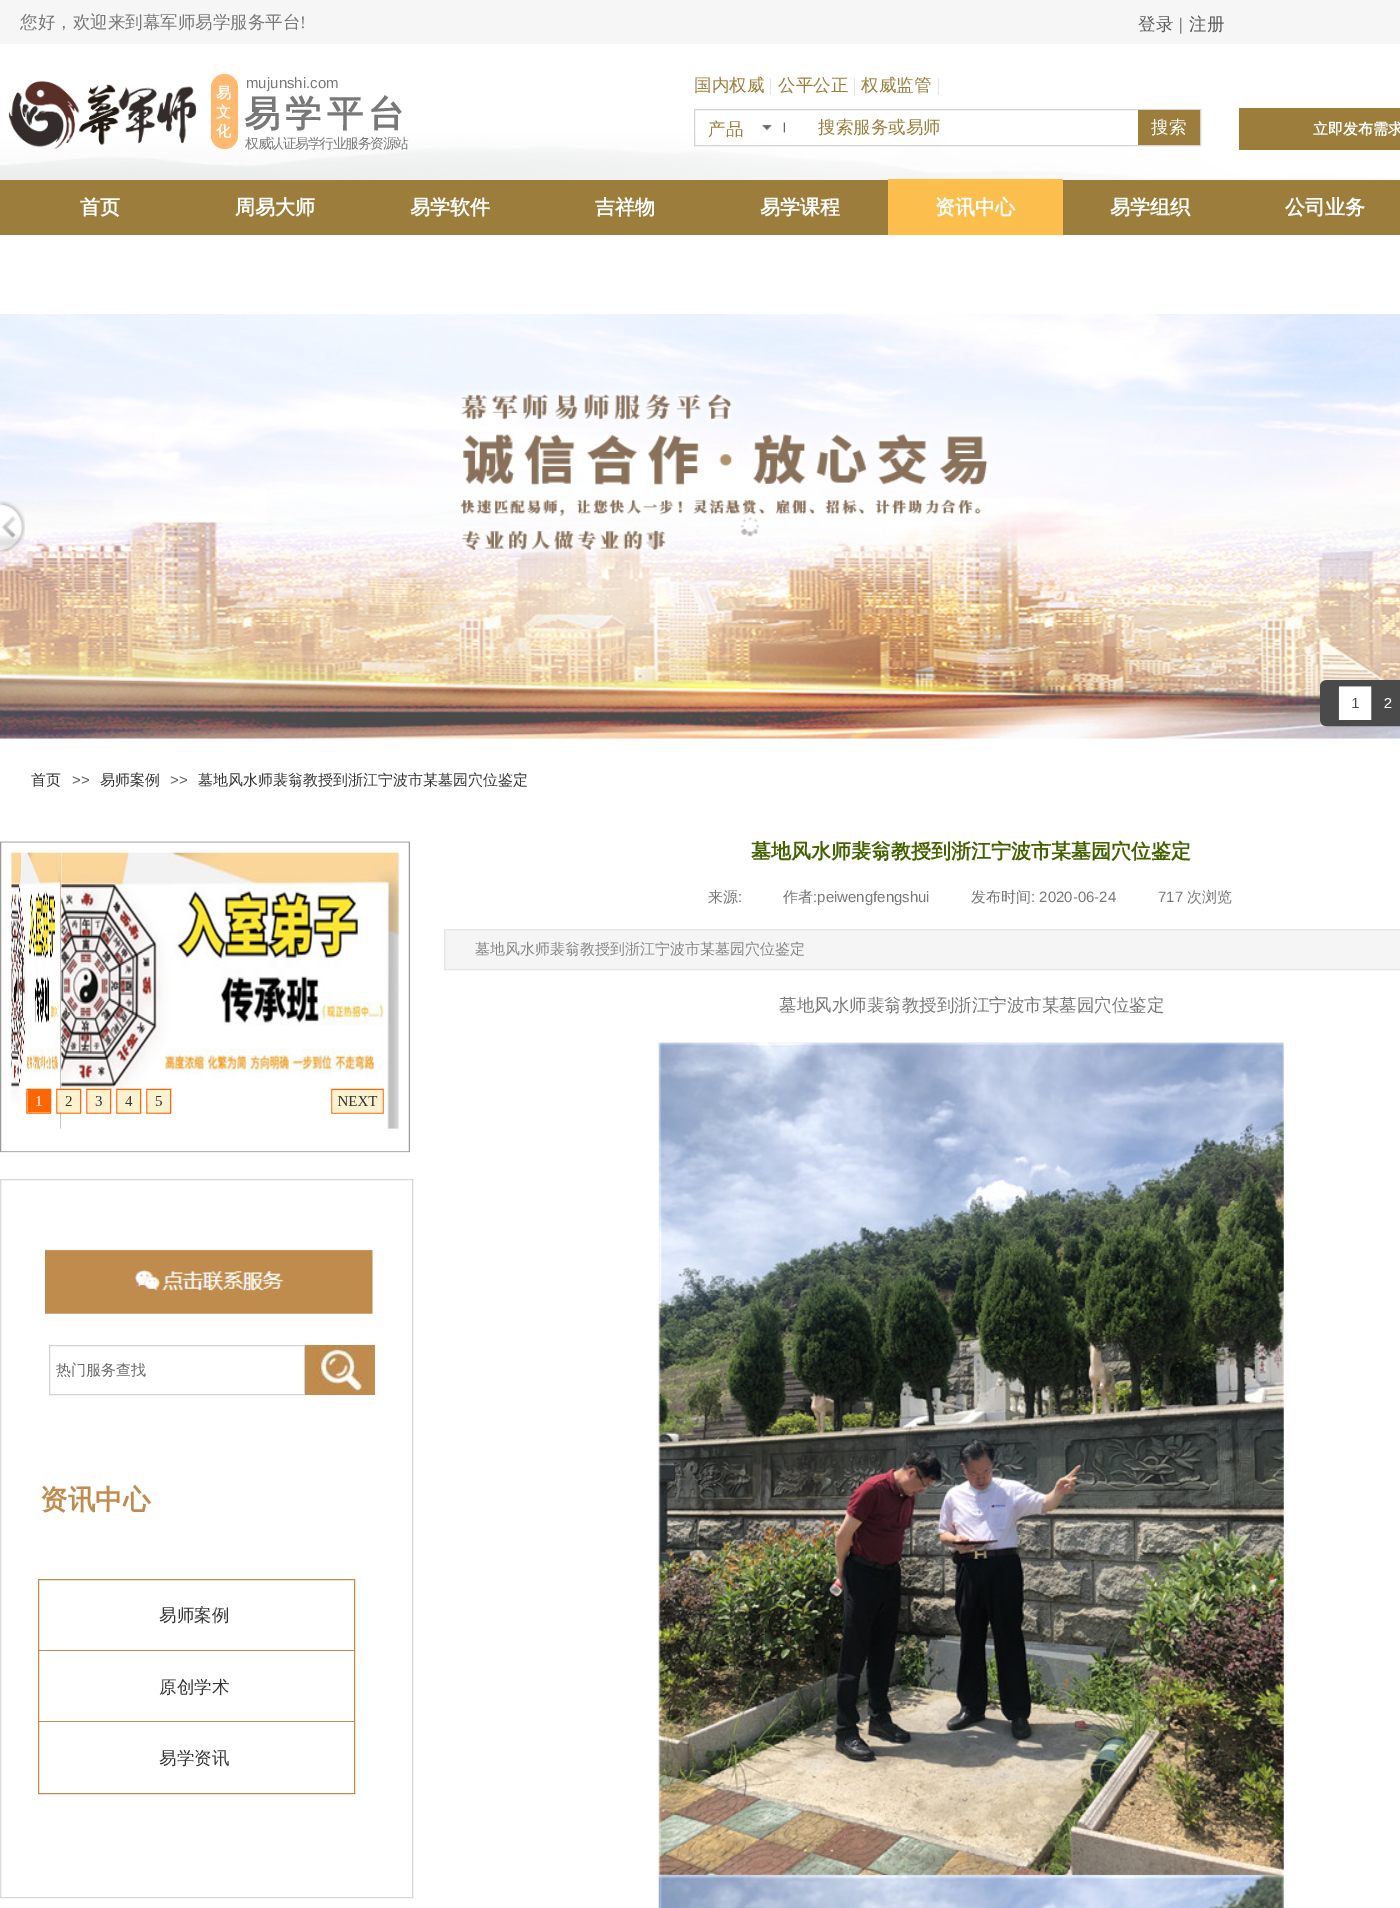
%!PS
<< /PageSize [1400 1908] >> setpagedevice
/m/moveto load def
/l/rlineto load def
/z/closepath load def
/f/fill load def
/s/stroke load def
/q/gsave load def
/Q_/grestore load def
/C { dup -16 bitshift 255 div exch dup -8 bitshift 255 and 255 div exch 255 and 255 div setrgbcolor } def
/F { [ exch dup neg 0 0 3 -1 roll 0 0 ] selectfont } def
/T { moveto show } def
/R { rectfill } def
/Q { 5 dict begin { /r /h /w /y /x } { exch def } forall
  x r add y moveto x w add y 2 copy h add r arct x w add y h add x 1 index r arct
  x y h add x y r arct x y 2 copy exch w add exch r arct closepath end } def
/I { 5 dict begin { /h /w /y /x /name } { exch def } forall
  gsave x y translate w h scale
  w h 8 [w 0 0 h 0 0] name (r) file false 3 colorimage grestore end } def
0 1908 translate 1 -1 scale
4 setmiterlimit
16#FFFFFF C
0 0 1400 1908 R
16#F6F6F6 C
0 0 1400 44 R
/WenQuanYiZenHei-Medium 17.5 F
16#787878 C
(您好，欢迎来到幕军师易学服务平台) 20 28 T
/LiberationSerif-Regular 17.5 F
(!) 300 28 T
/WenQuanYiZenHei-Medium 17.5 F
16#5A5A5A C
(登录) 1138 30 T
/LiberationSerif-Regular 17.5 F
(|) 1179 30 T
/WenQuanYiZenHei-Medium 17.5 F
(注册) 1189 30 T
(1.rgb) 0 44 1400 136 I
(2.rgb) 8 81 189 68 I
16#FFB971 C
211 74 27 75 13.5 Q f
/WenQuanYiZenHei-Bold 15 F
16#FFFFFF C
(易) 216 98 T
(文) 216 117 T
(化) 216 136 T
/LiberationSans-Regular 15 F
16#787878 C
(mujunshi.com) 246 88 T
/WenQuanYiZenHei-Bold 36.25 F
244 126 m 5 0 (易学平台) ashow
/WenQuanYiZenHei-Medium 13.75 F
245 148 m -1.25 0 (权威认证易学行业服务资源站) ashow
/WenQuanYiZenHei-Medium 17.5 F
16#9D7D3B C
(国内权威) 694 91 T
16#E4E4E4 C
770 78 1 17 R
16#9D7D3B C
(公平公正) 778 91 T
16#E4E4E4 C
854 78 1 17 R
16#9D7D3B C
(权威监管) 861 91 T
16#E4E4E4 C
938 78 1 17 R
16#D3D3D3 C
694.5 109.5 506 36 rectstroke
(3.rgb) 762 122 23 11 I
16#9D7D3B C
(产品) 708 135 T
(搜索服务或易师) 818 133 T
1138 110 62 35 R
16#FFFFFF C
(搜索) 1151 133 T
16#9D7D3B C
1239 108 161 42 R
/WenQuanYiZenHei-Bold 15 F
16#FFFFFF C
(立即发布需求) 1313 134 T
16#9D7D3B C
0 180 1400 55 R
/WenQuanYiZenHei-Bold 20 F
16#FFFFFF C
(首页) 80 214 T
(周易大师) 235 214 T
(易学软件) 410 214 T
(吉祥物) 595 214 T
(易学课程) 760 214 T
16#FCBE4C C
888 179 175 56 R
16#FFFFFF C
(资讯中心) 935 214 T
(易学组织) 1110 214 T
(公司业务) 1285 214 T
(4.rgb) 0 314 1400 425 I
/WenQuanYiZenHei-Medium 15 F
16#333333 C
(首页) 31 785 T
/LiberationSans-Regular 15 F
16#5A5A5A C
(>>) 72 785 T
/WenQuanYiZenHei-Medium 15 F
16#333333 C
(易师案例) 100 785 T
/LiberationSans-Regular 15 F
16#5A5A5A C
(>>) 170 785 T
/WenQuanYiZenHei-Medium 15 F
16#333333 C
(墓地风水师裴翁教授到浙江宁波市某墓园穴位鉴定) 198 785 T
(5.rgb) 0 841 410 312 I
/WenQuanYiZenHei-Bold 20 F
16#426100 C
(墓地风水师裴翁教授到浙江宁波市某墓园穴位鉴定) 751 858 T
/WenQuanYiZenHei-Medium 15 F
16#787878 C
(来源) 708 902 T
/LiberationSans-Regular 15 F
(:) 738 902 T
/WenQuanYiZenHei-Medium 15 F
(作者) 783 902 T
/LiberationSans-Regular 15 F
(:peiwengfengshui) 813 902 T
/WenQuanYiZenHei-Medium 15 F
(发布时间) 971 902 T
/LiberationSans-Regular 15 F
(: 2020-06-24) 1031 902 T
(717) 1158 902 T
/WenQuanYiZenHei-Medium 15 F
(次浏览) 1187 902 T
16#F5F5F5 C
444.5 929.5 m 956 0 l 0 40 l -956 0 l z q f Q_
16#E5E5E5 C
s
16#868686 C
(墓地风水师裴翁教授到浙江宁波市某墓园穴位鉴定) 475 954 T
/WenQuanYiZenHei-Medium 17.5 F
16#787878 C
(墓地风水师裴翁教授到浙江宁波市某墓园穴位鉴定) 779 1011 T
(6.rgb) 658 1042 626 833 I
(7.rgb) 658 1875 626 33 I
16#D9D9D9 C
.5 1179.5 412 718 rectstroke
(8.rgb) 45 1249 328 65 I
16#D3D3D3 C
49.5 1345.5 255 49 rectstroke
/WenQuanYiZenHei-Medium 15 F
16#666666 C
(热门服务查找) 56 1375 T
(9.rgb) 305 1345 70 50 I
/WenQuanYiZenHei-Bold 27.5 F
16#BF8C4D C
(资讯中心) 40 1509 T
38.5 1579.5 316 214 rectstroke
39 1650 315 1 R
/WenQuanYiZenHei-Medium 17.5 F
16#333333 C
(易师案例) 159 1621 T
16#BF8C4D C
39 1721 315 1 R
16#333333 C
(原创学术) 159 1693 T
(易学资讯) 159 1764 T
showpage
